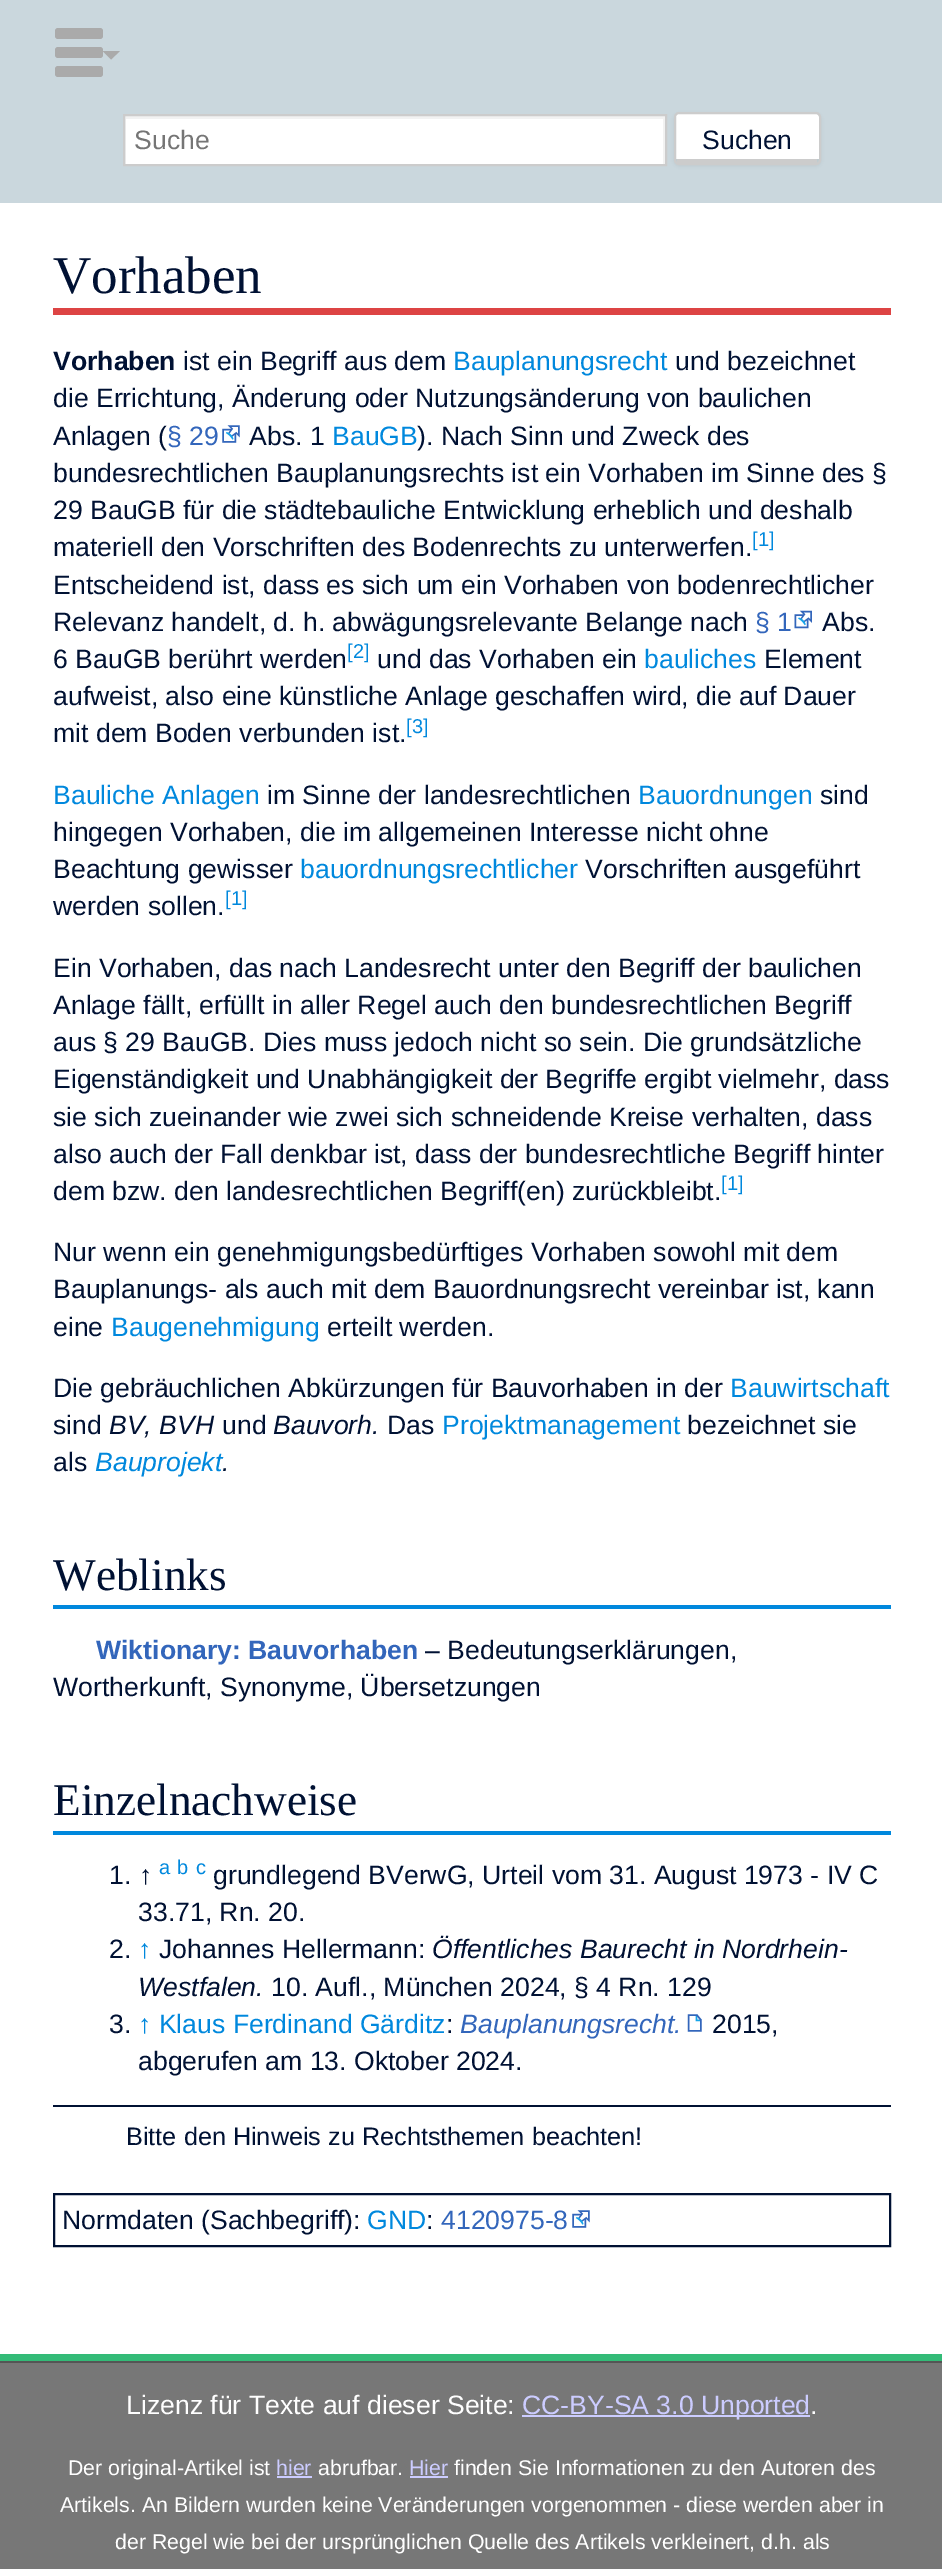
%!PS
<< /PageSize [942 2569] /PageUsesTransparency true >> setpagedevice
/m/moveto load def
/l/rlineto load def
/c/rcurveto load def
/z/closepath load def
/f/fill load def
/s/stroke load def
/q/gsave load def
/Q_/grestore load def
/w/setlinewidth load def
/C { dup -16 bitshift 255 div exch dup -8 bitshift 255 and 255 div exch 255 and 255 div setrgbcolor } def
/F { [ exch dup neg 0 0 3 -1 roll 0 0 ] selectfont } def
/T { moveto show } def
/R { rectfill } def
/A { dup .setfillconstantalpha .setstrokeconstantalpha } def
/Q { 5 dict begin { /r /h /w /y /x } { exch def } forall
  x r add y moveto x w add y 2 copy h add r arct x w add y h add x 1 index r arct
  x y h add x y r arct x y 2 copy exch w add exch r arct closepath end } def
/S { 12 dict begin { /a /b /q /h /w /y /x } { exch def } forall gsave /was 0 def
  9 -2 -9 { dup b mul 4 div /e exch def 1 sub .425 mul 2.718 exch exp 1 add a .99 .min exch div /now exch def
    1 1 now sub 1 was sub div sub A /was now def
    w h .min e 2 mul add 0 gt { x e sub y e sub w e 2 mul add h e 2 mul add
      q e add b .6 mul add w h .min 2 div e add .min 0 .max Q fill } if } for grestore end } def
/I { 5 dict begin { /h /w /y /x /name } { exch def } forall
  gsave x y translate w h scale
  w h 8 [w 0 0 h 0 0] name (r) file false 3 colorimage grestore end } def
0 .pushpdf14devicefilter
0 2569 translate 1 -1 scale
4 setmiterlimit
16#777777 C
0 0 942 2569 R
16#CAD7DD C
0 0 942 203 R
16#FFFFFF C
126 119 537 45 R
q
124 116 541 49 rectclip
16#F2F2F2 C
-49 -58 m 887 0 l 0 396 l -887 0 l z 126 119 m 537 0 l 0 45 l -537 0 l z eofill
Q_
16#CCCCCC C
2 w
124 115 542 50 rectstroke
/LiberationSans-Regular 26.6 F
16#757575 C
(Suche) 134 149 T
16#000000 C
674 114 147 52 5 2 .05 S
16#FFFFFF C
679 114 m 136 0 l 2 0 4 1 4 3 c 0 42 l -4 0 l -139 0 l 0 -42 l 0 -2 1 -3 3 -3 c z f
16#CCCCCC C
675 113 145 51 4 Q s
677 159 140 4 R
16#001133 C
(Suchen) 702 149 T
16#33BB77 C
0 2354 942 7 R
16#FFFFFF C
0 203 942 2151 R
16#AAAAAA C
55 66 48 11 3 Q f
55 47 48 11 3 Q f
55 28 48 11 3 Q f
120 51 m -9 8.5 l -8.5 -8.5 l z f
16#DD4444 C
53 308 838 7 R
/LiberationSerif-Regular 53 F
16#001133 C
(Vorhaben) 53 293 T
/LiberationSans-Bold 26.6 F
(Vorhaben) 53 370 T
/LiberationSans-Regular 26.6 F
(ist ein Begriff aus dem) 183 370 T
16#0088DD C
(Bauplanungsrecht) 453 370 T
16#001133 C
(und bezeichnet) 675 370 T
(die Errichtung, Änderung oder Nutzungsänderung von baulichen) 53 407 T
(Anlagen \() 53 445 T
16#3366BB C
(§ 29) 167 445 T
(1.rgb) 222 425 18 18 I
16#001133 C
(Abs. 1) 249 445 T
16#0088DD C
(BauGB) 332 445 T
16#001133 C
(\). Nach Sinn und Zweck des) 417 445 T
(bundesrechtlichen Bauplanungsrechts ist ein Vorhaben im Sinne des §) 53 482 T
(29 BauGB für die städtebauliche Entwicklung erheblich und deshalb) 53 519 T
(materiell den Vorschriften des Bodenrechts zu unterwerfen.) 53 556 T
/LiberationSans-Regular 20 F
16#0088DD C
([1]) 752 546 T
/LiberationSans-Regular 26.6 F
16#001133 C
(Entscheidend ist, dass es sich um ein Vorhaben von bodenrechtlicher) 53 594 T
(Relevanz handelt, d. h. abwägungsrelevante Belange nach) 53 631 T
16#3366BB C
(§ 1) 755 631 T
(2.rgb) 794 610 18 19 I
16#001133 C
(Abs.) 822 631 T
(6 BauGB berührt werden) 53 668 T
/LiberationSans-Regular 20 F
16#0088DD C
([2]) 347 658 T
/LiberationSans-Regular 26.6 F
16#001133 C
(und das Vorhaben ein) 377 668 T
16#0088DD C
(bauliches) 644 668 T
16#001133 C
(Element) 764 668 T
(aufweist, also eine künstliche Anlage geschaffen wird, die auf Dauer) 53 705 T
(mit dem Boden verbunden ist.) 53 742 T
/LiberationSans-Regular 20 F
16#0088DD C
([3]) 406 733 T
/LiberationSans-Regular 26.6 F
(Bauliche Anlagen) 53 804 T
16#001133 C
(im Sinne der landesrechtlichen) 267 804 T
16#0088DD C
(Bauordnungen) 638 804 T
16#001133 C
(sind) 820 804 T
(hingegen Vorhaben, die im allgemeinen Interesse nicht ohne) 53 841 T
(Beachtung gewisser) 53 878 T
16#0088DD C
(bauordnungsrechtlicher) 300 878 T
16#001133 C
(Vorschriften ausgeführt) 585 878 T
(werden sollen.) 53 915 T
/LiberationSans-Regular 20 F
16#0088DD C
([1]) 225 905 T
/LiberationSans-Regular 26.6 F
16#001133 C
(Ein Vorhaben, das nach Landesrecht unter den Begriff der baulichen) 53 977 T
(Anlage fällt, erfüllt in aller Regel auch den bundesrechtlichen Begriff) 53 1014 T
(aus § 29 BauGB. Dies muss jedoch nicht so sein. Die grundsätzliche) 53 1051 T
(Eigenständigkeit und Unabhängigkeit der Begriffe ergibt vielmehr, dass) 53 1088 T
(sie sich zueinander wie zwei sich schneidende Kreise verhalten, dass) 53 1126 T
(also auch der Fall denkbar ist, dass der bundesrechtliche Begriff hinter) 53 1163 T
(dem bzw. den landesrechtlichen Begriff\(en\) zurückbleibt.) 53 1200 T
/LiberationSans-Regular 20 F
16#0088DD C
([1]) 721 1190 T
/LiberationSans-Regular 26.6 F
16#001133 C
(Nur wenn ein genehmigungsbedürftiges Vorhaben sowohl mit dem) 53 1261 T
(Bauplanungs- als auch mit dem Bauordnungsrecht vereinbar ist, kann) 53 1298 T
(eine) 53 1336 T
16#0088DD C
(Baugenehmigung) 111 1336 T
16#001133 C
(erteilt werden.) 327 1336 T
(Die gebräuchlichen Abkürzungen für Bauvorhaben in der) 53 1397 T
16#0088DD C
(Bauwirtschaft) 730 1397 T
16#001133 C
(sind) 53 1434 T
/LiberationSans-Italic 26.6 F
(BV, BVH) 109 1434 T
/LiberationSans-Regular 26.6 F
(und) 222 1434 T
/LiberationSans-Italic 26.6 F
(Bauvorh.) 273 1434 T
/LiberationSans-Regular 26.6 F
(Das) 387 1434 T
16#0088DD C
(Projektmanagement) 442 1434 T
16#001133 C
(bezeichnet sie) 687 1434 T
(als) 53 1471 T
/LiberationSans-Italic 26.6 F
16#0088DD C
(Bauprojekt) 95 1471 T
16#001133 C
(.) 222 1471 T
16#0088DD C
53 1605 838 4 R
/LiberationSerif-Regular 45.25 F
16#001133 C
(Weblinks) 53 1590 T
/LiberationSans-Bold 26.6 F
16#3366BB C
(Wiktionary: Bauvorhaben) 96 1659 T
/LiberationSans-Regular 26.6 F
16#001133 C
(– Bedeutungserklärungen,) 425 1659 T
(Wortherkunft, Synonyme, Übersetzungen) 53 1696 T
16#0088DD C
53 1831 838 4 R
/LiberationSerif-Regular 45.25 F
16#001133 C
(Einzelnachweise) 53 1815 T
/LiberationSans-Regular 26.6 F
(1. ↑) 109 1884 T
/LiberationSans-Regular 20 F
16#0088DD C
(a) 159 1874 T
(b) 177 1874 T
(c) 196 1874 T
/LiberationSans-Regular 26.6 F
16#001133 C
(grundlegend BVerwG, Urteil vom 31. August 1973 - IV C) 213 1884 T
(33.71, Rn. 20.) 138 1921 T
(2.) 109 1958 T
16#0088DD C
(↑) 138 1958 T
16#001133 C
(Johannes Hellermann:) 159 1958 T
/LiberationSans-Italic 26.6 F
(Öffentliches Baurecht in Nordrhein-) 432 1958 T
(Westfalen.) 138 1996 T
/LiberationSans-Regular 26.6 F
(10. Aufl., München 2024, § 4 Rn. 129) 271 1996 T
(3.) 109 2033 T
16#0088DD C
(↑ Klaus Ferdinand Gärditz) 138 2033 T
16#001133 C
(:) 446 2033 T
/LiberationSans-Italic 26.6 F
16#3366BB C
(Bauplanungsrecht.) 460 2033 T
(3.rgb) 687 2014 15 18 I
/LiberationSans-Regular 26.6 F
16#001133 C
(2015,) 712 2033 T
(abgerufen am 13. Oktober 2024.) 138 2070 T
53 2105 838 2 R
/LiberationSans-Regular 25.25 F
(Bitte den Hinweis zu Rechtsthemen beachten!) 126 2145 T
54 2194 836 52 rectstroke
/LiberationSans-Regular 26.6 F
(Normdaten \(Sachbegriff\):) 62 2229 T
16#0088DD C
(GND) 367 2229 T
16#001133 C
(:) 426 2229 T
16#3366BB C
(4120975-8) 441 2229 T
(1.rgb) 572 2210 18 18 I
16#555555 C
0 2361 942 2 R
16#FFFFFF C
(Lizenz für Texte auf dieser Seite:) 126 2414 T
16#CCCCFF C
522 2415 288 2 R
(CC-BY-SA 3.0 Unported) 522 2414 T
16#FFFFFF C
(.) 810 2414 T
/LiberationSans-Regular 21.3 F
(Der original-Artikel ist) 68 2475 T
16#CCCCFF C
(hier) 276 2475 T
277 2476 35 2 R
16#FFFFFF C
(abrufbar.) 318 2475 T
16#CCCCFF C
(Hier) 409 2475 T
410 2476 38 2 R
16#FFFFFF C
(finden Sie Informationen zu den Autoren des) 454 2475 T
(Artikels. An Bildern wurden keine Veränderungen vorgenommen - diese werden aber in) 60 2512 T
(der Regel wie bei der ursprünglichen Quelle des Artikels verkleinert, d.h. als) 115 2549 T
.poppdf14devicefilter showpage
